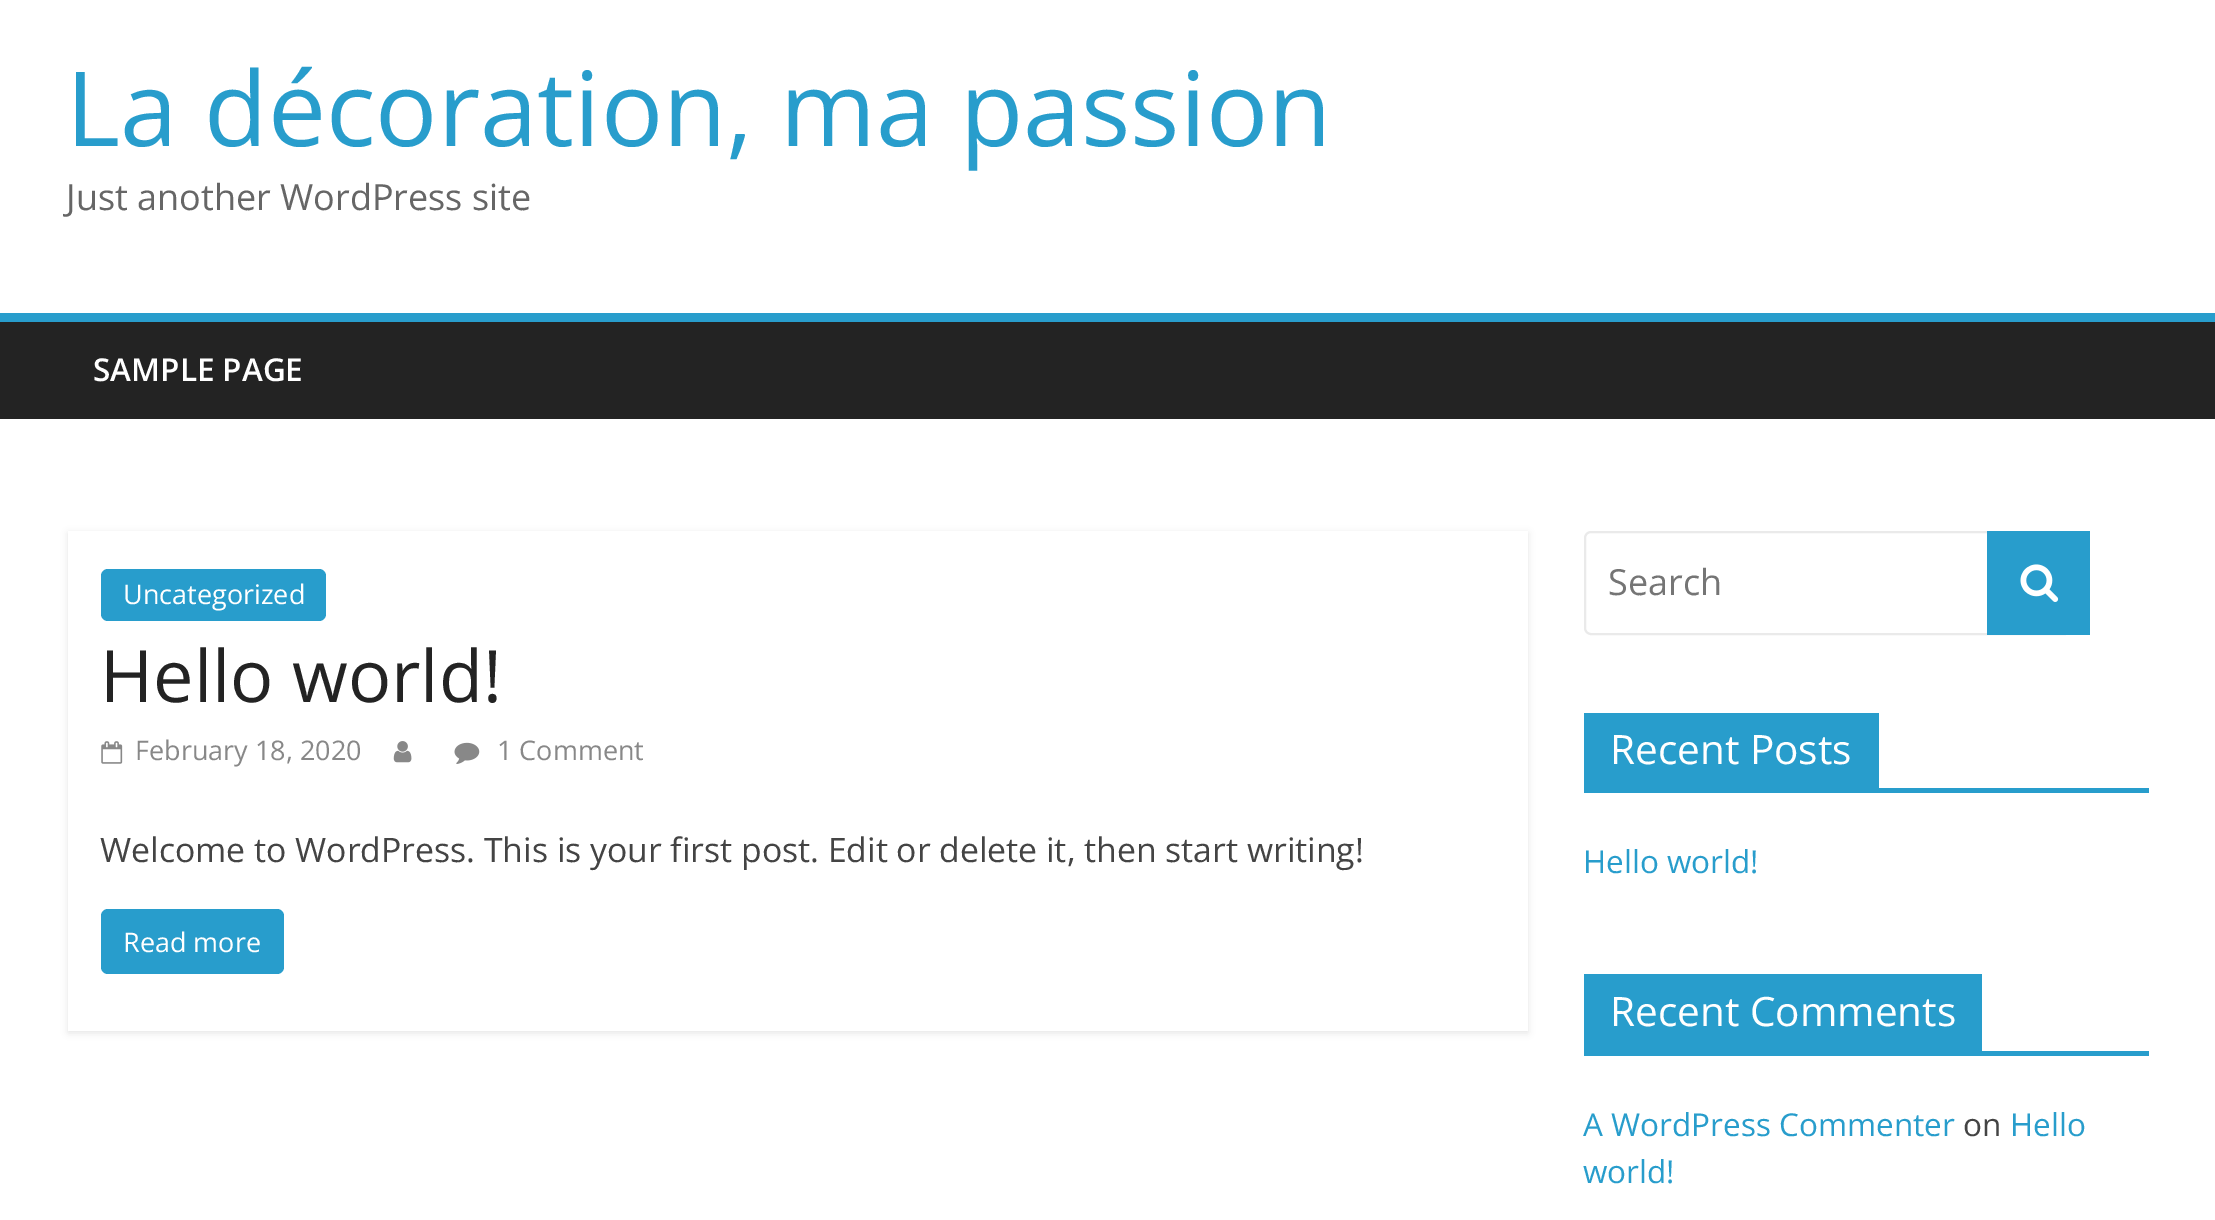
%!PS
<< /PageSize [2215 1220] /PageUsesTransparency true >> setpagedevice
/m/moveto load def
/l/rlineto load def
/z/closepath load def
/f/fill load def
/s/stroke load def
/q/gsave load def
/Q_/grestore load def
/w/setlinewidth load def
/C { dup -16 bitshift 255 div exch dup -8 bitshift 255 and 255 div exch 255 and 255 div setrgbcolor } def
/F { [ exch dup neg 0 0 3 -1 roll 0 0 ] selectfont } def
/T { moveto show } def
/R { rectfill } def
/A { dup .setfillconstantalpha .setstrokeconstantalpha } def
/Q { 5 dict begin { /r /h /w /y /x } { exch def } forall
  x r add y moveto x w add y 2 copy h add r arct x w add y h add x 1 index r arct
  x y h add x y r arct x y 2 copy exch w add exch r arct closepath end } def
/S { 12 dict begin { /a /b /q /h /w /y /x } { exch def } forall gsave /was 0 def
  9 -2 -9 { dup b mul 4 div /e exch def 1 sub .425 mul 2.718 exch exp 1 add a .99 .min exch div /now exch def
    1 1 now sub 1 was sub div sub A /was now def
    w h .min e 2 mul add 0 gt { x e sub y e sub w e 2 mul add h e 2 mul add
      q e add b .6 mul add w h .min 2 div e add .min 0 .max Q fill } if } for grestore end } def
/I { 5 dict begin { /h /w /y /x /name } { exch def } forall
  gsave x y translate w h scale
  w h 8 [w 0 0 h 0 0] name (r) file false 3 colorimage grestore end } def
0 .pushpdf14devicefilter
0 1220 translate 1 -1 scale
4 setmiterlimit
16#FFFFFF C
0 0 2215 1220 R
/OpenSans-Regular 103.5 F
16#289DCC C
(La décoration, ma passion) 66 146 T
/OpenSans-Regular 36 F
16#666666 C
(Just another WordPress site) 66 210 T
16#232323 C
0 322 2215 97 R
16#289DCC C
0 313 2215 9 R
/OpenSans-SemiBold 31.5 F
16#FFFFFF C
(SAMPLE PAGE) 93 381 T
q
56 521 m 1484 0 l 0 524 l -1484 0 l z 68 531 m 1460 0 l 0 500 l -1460 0 l z eoclip newpath
16#000000 C
68 533 1460 500 0 3.5 .1 S
Q_
16#289DCC C
101 569 225 52 7 Q f
/OpenSans-Regular 27 F
16#FFFFFF C
(Uncategorized) 123 604 T
/OpenSans-Regular 72 F
16#232323 C
(Hello world!) 100 702 T
(1.rgb) 101 741 22 23 I
/OpenSans-Regular 27 F
16#888888 C
(February 18, 2020) 135 760 T
(2.rgb) 393 741 19 22 I
(3.rgb) 454 742 26 22 I
(1 Comment) 497 760 T
/OpenSans-Regular 33.75 F
16#444444 C
(Welcome to WordPress. This is your first post. Edit or delete it, then start writing!) 100 862 T
16#289DCC C
101 909 183 65 7 Q f
/OpenSans-Regular 27 F
16#FFFFFF C
(Read more) 123 952 T
16#EAEAEA C
2 w
1585 532 486 102 6 Q s
/OpenSans-Regular 36 F
16#757575 C
(Search) 1608 595 T
16#289DCC C
1987 531 103 104 R
(4.rgb) 2020 564 39 38 I
1584 788 565 5 R
1584 713 295 75 R
/OpenSans-Regular 40.5 F
16#FFFFFF C
(Recent Posts) 1610 764 T
/OpenSans-Regular 31.5 F
16#289DCC C
(Hello world!) 1583 873 T
1584 1051 565 5 R
1584 974 398 77 R
/OpenSans-Regular 40.5 F
16#FFFFFF C
(Recent Comments) 1610 1026 T
/OpenSans-Regular 31.5 F
16#289DCC C
(A WordPress Commenter) 1583 1136 T
16#444444 C
(on) 1963 1136 T
16#289DCC C
(Hello) 2010 1136 T
(world!) 1583 1183 T
.poppdf14devicefilter showpage
